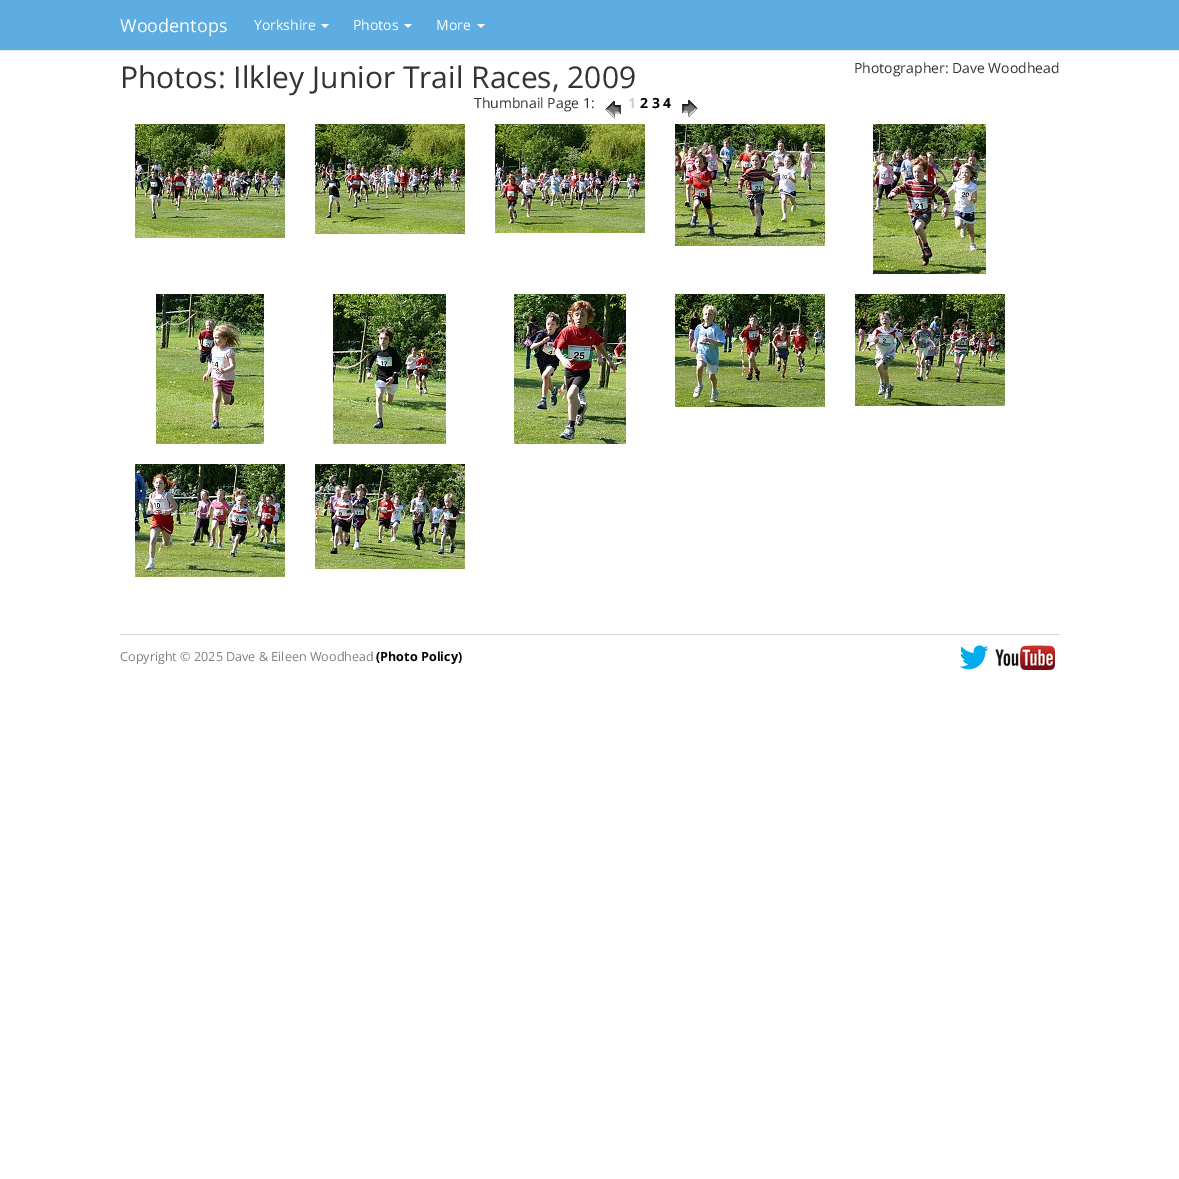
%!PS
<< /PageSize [1179 1179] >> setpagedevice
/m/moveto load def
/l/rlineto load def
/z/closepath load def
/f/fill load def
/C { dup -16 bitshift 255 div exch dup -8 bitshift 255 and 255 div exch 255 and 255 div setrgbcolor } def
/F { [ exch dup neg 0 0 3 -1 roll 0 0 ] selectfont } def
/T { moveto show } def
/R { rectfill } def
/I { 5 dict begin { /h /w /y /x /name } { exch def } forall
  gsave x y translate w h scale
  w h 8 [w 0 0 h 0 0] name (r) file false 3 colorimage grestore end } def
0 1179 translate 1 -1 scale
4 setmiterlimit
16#FFFFFF C
0 0 1179 1179 R
16#5DADE2 C
0 0 1179 50 R
16#E7E7E7 C
0 50 1179 1 R
/OpenSans-Regular 18 F
16#FFFFFF C
(Woodentops) 120 32 T
/OpenSans-Regular 14 F
(Yorkshire) 254 30 T
321 24 m 8 0 l -4 4 l z f
(Photos) 353 30 T
404 24 m 8 0 l -4 4 l z f
(More) 436 30 T
477 24 m 8 0 l -4 4 l z f
/OpenSans-Regular 30 F
16#333333 C
(Photos: Ilkley Junior Trail Races, 2009) 120 88 T
/OpenSans-Regular 14 F
(Photographer: Dave Woodhead) 854 73 T
(Thumbnail Page 1:) 474 108 T
(1.rgb) 605 101 16 17 I
/OpenSans-Bold 14 F
16#CCCCCC C
(1) 628 108 T
16#000000 C
(2 3 4) 640 108 T
(2.rgb) 682 100 16 17 I
(3.rgb) 135 124 150 114 I
(4.rgb) 315 124 150 110 I
(5.rgb) 495 124 150 109 I
(6.rgb) 675 124 150 122 I
(7.rgb) 873 124 113 150 I
(8.rgb) 156 294 108 150 I
(9.rgb) 333 294 113 150 I
(10.rgb) 514 294 112 150 I
(11.rgb) 675 294 150 113 I
(12.rgb) 855 294 150 112 I
(13.rgb) 135 464 150 113 I
(14.rgb) 315 464 150 105 I
16#D8D8D8 C
120 634 940 1 R
/OpenSans-Regular 12.6 F
16#808080 C
(Copyright © 2025 Dave & Eileen Woodhead) 120 661 T
/OpenSans-Bold 12.6 F
16#000000 C
(\(Photo Policy\)) 376 661 T
(15.rgb) 959 645 29 25 I
(16.rgb) 995 645 60 25 I
showpage
